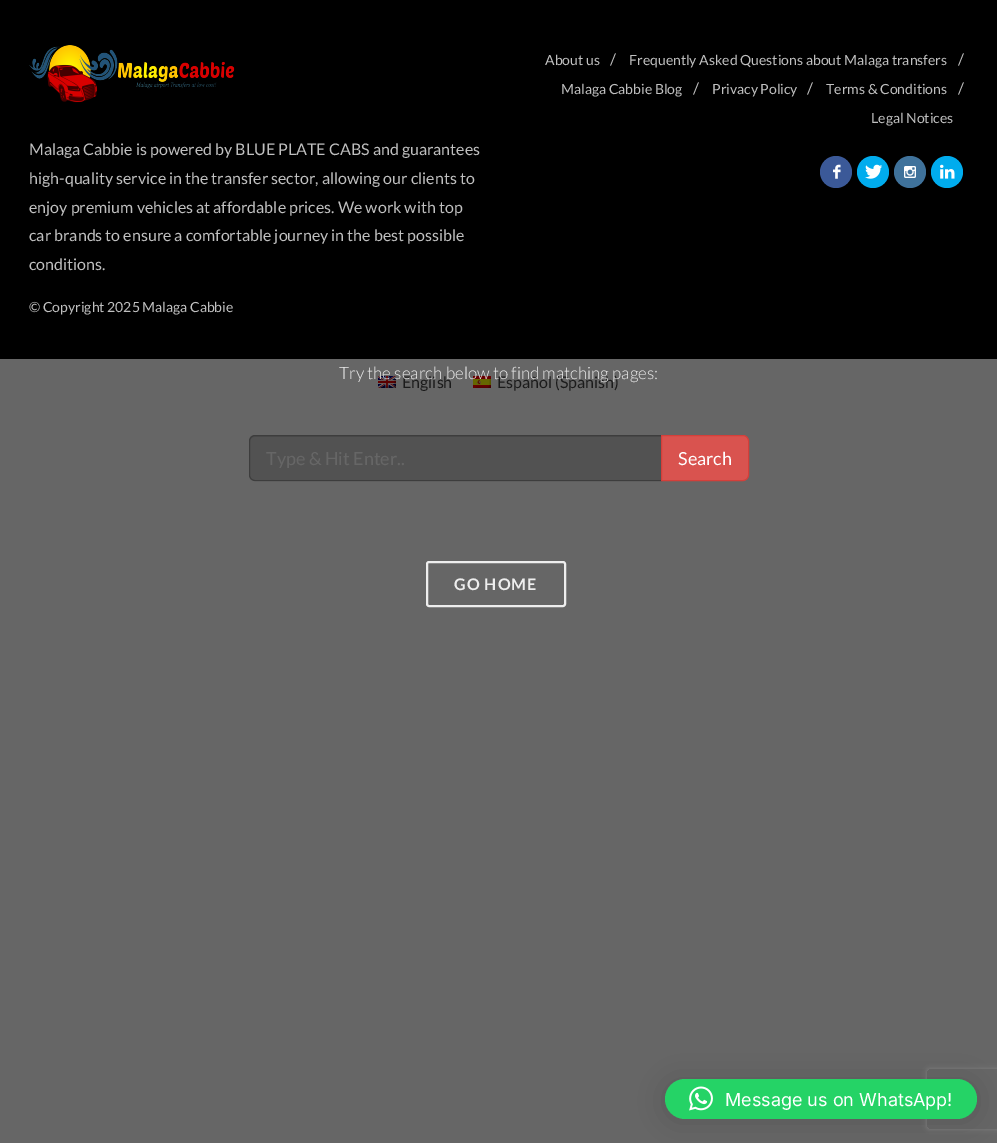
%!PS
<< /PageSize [997 1143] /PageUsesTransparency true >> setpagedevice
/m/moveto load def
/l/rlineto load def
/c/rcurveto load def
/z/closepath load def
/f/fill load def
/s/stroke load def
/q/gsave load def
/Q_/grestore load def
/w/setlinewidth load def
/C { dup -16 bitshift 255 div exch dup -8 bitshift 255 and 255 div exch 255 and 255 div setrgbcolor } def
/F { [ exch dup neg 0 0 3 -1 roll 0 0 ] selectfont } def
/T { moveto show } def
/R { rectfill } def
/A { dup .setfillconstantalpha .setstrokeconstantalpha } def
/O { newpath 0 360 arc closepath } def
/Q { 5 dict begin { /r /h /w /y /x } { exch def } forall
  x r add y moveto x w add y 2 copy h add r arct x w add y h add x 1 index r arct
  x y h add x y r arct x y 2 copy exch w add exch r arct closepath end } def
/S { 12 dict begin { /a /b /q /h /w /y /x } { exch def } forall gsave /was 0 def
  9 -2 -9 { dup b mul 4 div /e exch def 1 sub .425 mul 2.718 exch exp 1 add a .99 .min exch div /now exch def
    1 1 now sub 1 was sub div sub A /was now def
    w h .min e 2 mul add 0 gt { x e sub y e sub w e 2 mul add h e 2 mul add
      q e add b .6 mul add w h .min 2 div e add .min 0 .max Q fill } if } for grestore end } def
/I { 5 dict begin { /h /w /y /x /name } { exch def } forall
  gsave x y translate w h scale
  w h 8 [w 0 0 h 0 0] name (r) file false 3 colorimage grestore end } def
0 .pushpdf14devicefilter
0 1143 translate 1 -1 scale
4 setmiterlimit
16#666666 C
0 0 997 1143 R
16#000000 C
0 0 997 359 R
/Lato-Regular 14 F
16#BFBFBF C
(About us) 545 65 T
/Lato-Regular 16 F
(/) 610 65 T
/Lato-Regular 14 F
(Frequently Asked Questions about Malaga transfers) 629 65 T
/Lato-Regular 16 F
(/) 958 65 T
/Lato-Regular 14 F
(Malaga Cabbie Blog) 561 94 T
/Lato-Regular 16 F
(/) 693 94 T
/Lato-Regular 14 F
(Privacy Policy) 712 94 T
/Lato-Regular 16 F
(/) 807 94 T
/Lato-Regular 14 F
(Terms & Conditions) 826 94 T
/Lato-Regular 16 F
(/) 958 94 T
/Lato-Regular 14 F
(Legal Notices) 871 123 T
16#3B5998 C
836 172 16 O f
(1.rgb) 833 164 8 15 I
16#00ACEE C
873 172 16 O f
(2.rgb) 865 164 18 15 I
16#3F729B C
910 172 16 O f
(3.rgb) 904 166 12 12 I
16#00ACEE C
947 172 16 O f
(4.rgb) 940 164 15 15 I
(5.rgb) 29 45 206 58 I
/Lato-Regular 16 F
16#BFBFBF C
(Malaga Cabbie is powered by BLUE PLATE CABS and guarantees) 29 155 T
(high-quality service in the transfer sector, allowing our clients to) 29 184 T
(enjoy premium vehicles at affordable prices. We work with top) 29 213 T
(car brands to ensure a comfortable journey in the best possible) 29 241 T
(conditions.) 29 270 T
/Lato-Regular 14 F
(© Copyright 2025 Malaga Cabbie) 29 312 T
(6.rgb) 378 376 18 12 I
/Lato-Regular 16 F
16#1B1B1B C
(English) 402 388 T
(7.rgb) 473 376 18 12 I
(Español \(Spanish\)) 497 388 T
/Lato-Light 17 F
16#EEEEEE C
(Try the search below to find matching pages:) 339 379 T
16#525252 C
255 435 m 407 0 l 0 46 l -407 0 l -3.5 0 -6 -2.5 -6 -6 c 0 -34 l 0 -3.5 2.5 -6 6 -6 c z f
16#4C4C4C C
255 437 m 406 0 l 0 -1 l -406 0 l -3 0 -5 3 -5 6 c 0 -3 2 -5 5 -5 c z f
0.25 A
16#000000 C
255 435.5 m 406.5 0 l 0 45 l -406.5 0 l -3 0 -5.5 -2.5 -5.5 -5.5 c 0 -34 l 0 -3 2.5 -5.5 5.5 -5.5 c z s
/Lato-Regular 18 F
1 A
16#666666 C
(Type & Hit Enter..) 266 465 T
16#D9534F C
661.5 435.5 m 81.5 0 l 3 0 5.5 2.5 5.5 5.5 c 0 34 l 0 3 -2.5 5.5 -5.5 5.5 c -81.5 0 l z q f Q_
16#D43F3A C
s
16#FFFFFF C
(Search) 678 465 T
16#EEEEEE C
2 w
427 562 138 44 2 Q s
/Lato-Bold 16 F
454 590 m 1 0 (GO HOME) ashow
16#000000 C
665 1081 312 40 20 16 .16 S
q
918 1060 m 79 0 l 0 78 l -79 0 l z 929 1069 m 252 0 l 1 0 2 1 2 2 c 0 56 l 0 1 -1 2 -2 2 c -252 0 l -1 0 -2 -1 -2 -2 c 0 -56 l 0 -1 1 -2 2 -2 c z eoclip newpath
16#808080 C
927 1069 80 60 2 2.5 1 S
Q_
16#25D366 C
665 1079 312 40 20 Q f
(8.rgb) 689 1086 24 25 I
/Inter-Regular 18 F
16#FFFFFF C
(Message us on WhatsApp!) 725 1106 T
.poppdf14devicefilter showpage
